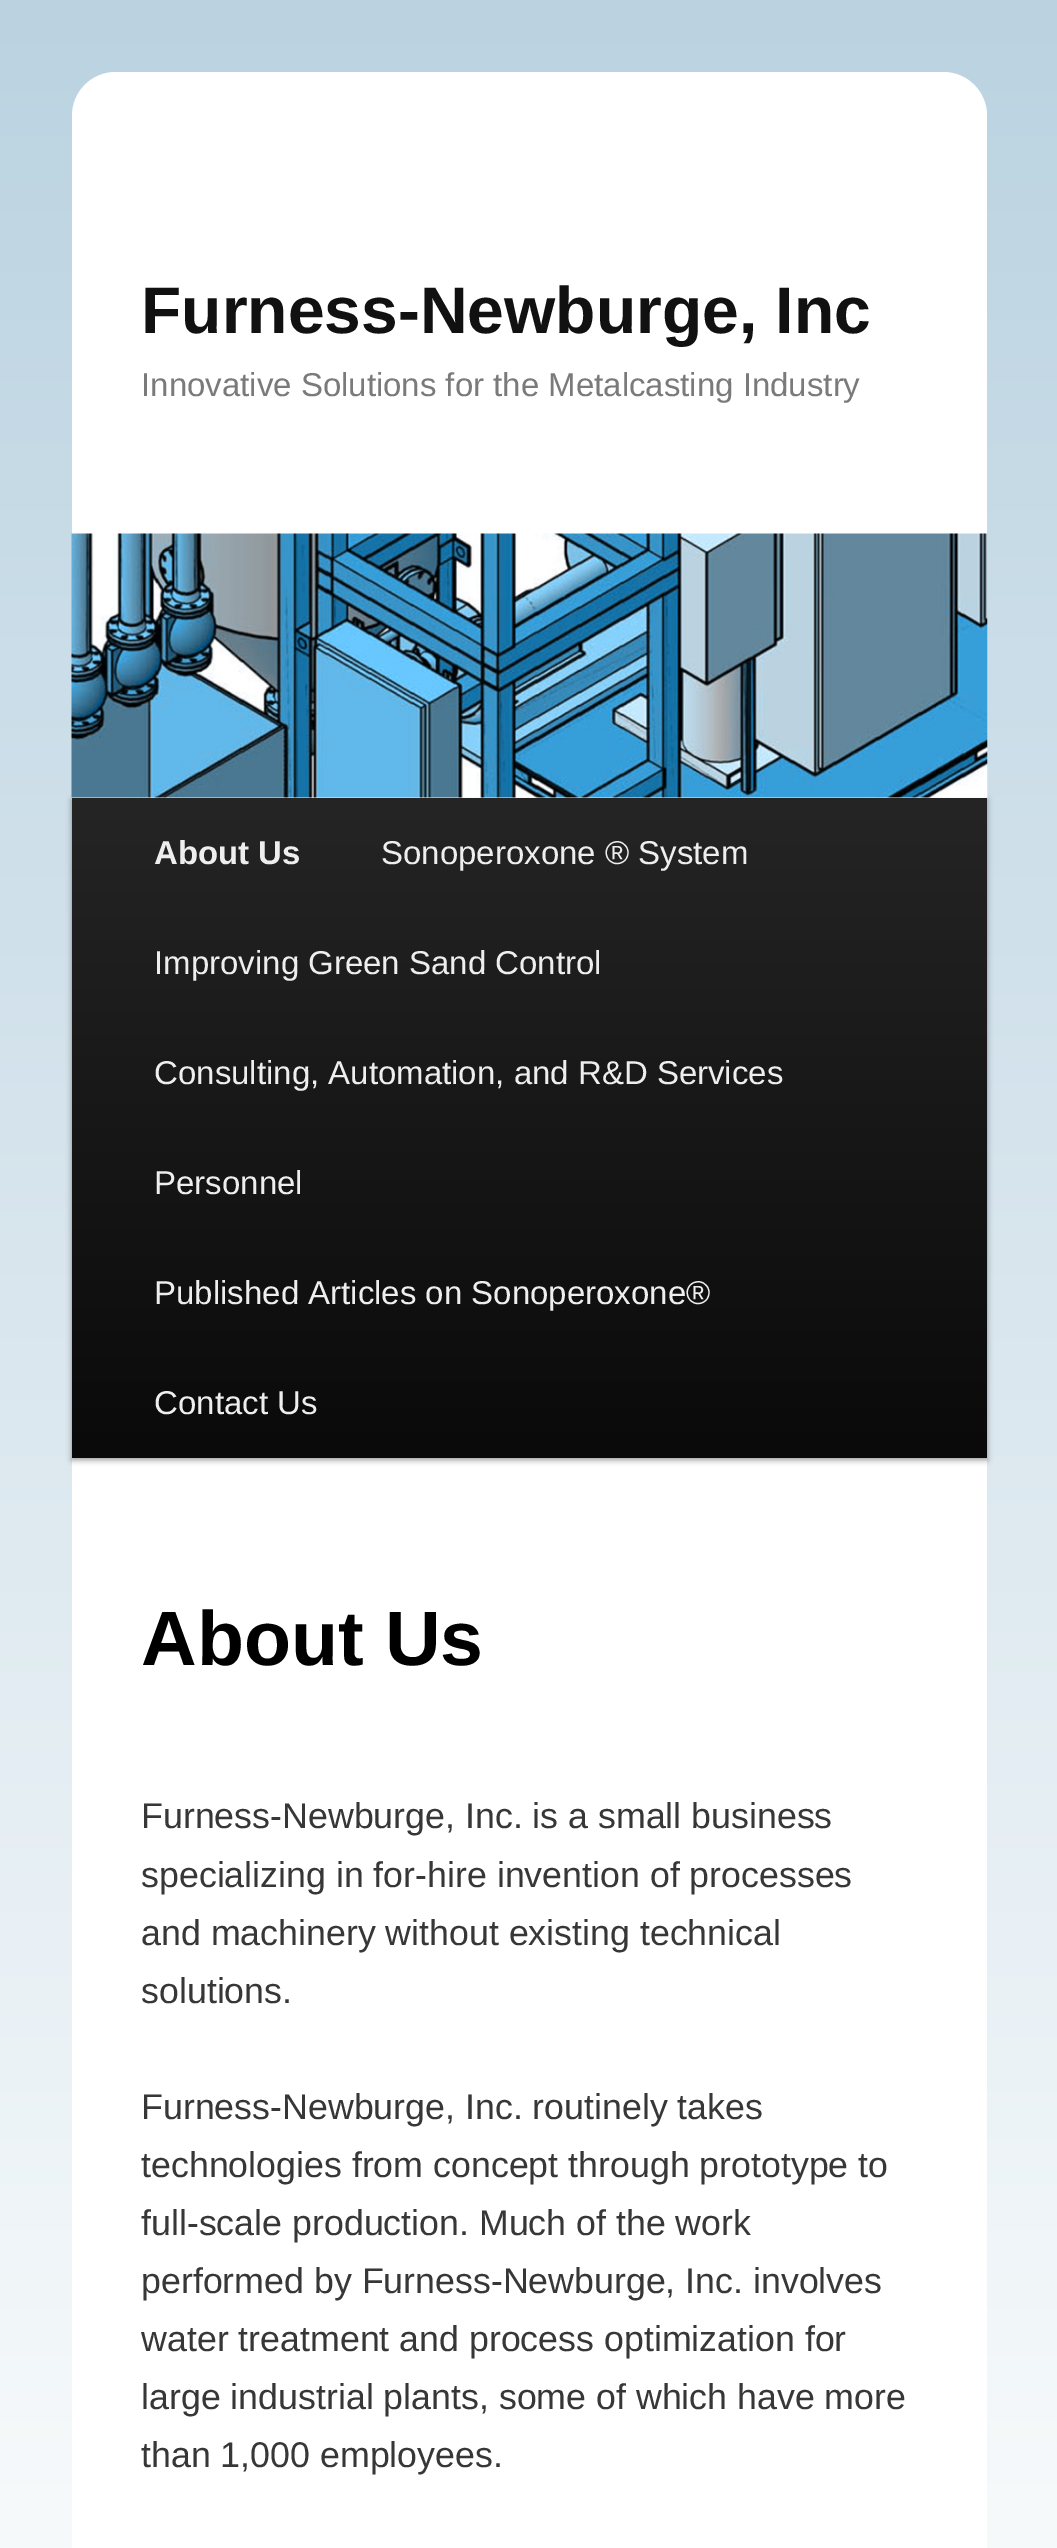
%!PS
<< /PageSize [1057 2548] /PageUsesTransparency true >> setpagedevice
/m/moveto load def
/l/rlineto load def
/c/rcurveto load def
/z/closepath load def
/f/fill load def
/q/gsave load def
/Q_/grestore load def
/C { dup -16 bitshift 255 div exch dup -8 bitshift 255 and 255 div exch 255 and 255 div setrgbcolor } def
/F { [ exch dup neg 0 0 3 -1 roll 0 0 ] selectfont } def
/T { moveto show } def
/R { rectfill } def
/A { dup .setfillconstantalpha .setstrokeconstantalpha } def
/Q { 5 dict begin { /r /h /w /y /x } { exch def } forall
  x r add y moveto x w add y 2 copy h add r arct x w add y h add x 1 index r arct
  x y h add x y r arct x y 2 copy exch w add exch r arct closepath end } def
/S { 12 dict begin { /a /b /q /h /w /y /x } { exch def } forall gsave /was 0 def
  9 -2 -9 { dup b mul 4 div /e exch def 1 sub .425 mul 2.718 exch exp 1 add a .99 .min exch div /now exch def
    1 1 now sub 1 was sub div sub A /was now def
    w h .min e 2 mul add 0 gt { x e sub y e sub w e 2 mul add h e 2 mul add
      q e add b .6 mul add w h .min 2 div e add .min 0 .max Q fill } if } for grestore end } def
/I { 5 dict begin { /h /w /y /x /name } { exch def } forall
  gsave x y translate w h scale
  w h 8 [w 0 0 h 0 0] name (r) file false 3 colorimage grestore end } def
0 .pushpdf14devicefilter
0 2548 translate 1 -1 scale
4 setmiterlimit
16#FFFFFF C
0 0 1057 2548 R
q 0 0 m 1057 0 l 0 2548 l -1057 0 l z clip newpath
<< /ShadingType 2 /ColorSpace /DeviceRGB /Coords [529 0 529 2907] /Extend [true true] /Function << /FunctionType 2 /Domain [0 1] /C0 [.733 .827 .882] /C1 [1 1 1] /N 1 >> >> shfill Q_
116 72 m 827 0 l 24.5 0 44 19.5 44 44 c 0 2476 l -915 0 l 0 -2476 l 0 -24.5 19.5 -44 44 -44 c z f
/LiberationSans-Bold 66 F
16#111111 C
(Furness-Newburge, Inc) 141 333 T
/LiberationSans-Regular 33 F
16#7A7A7A C
(Innovative Solutions for the Metalcasting Industry) 141 396 T
16#000000 C
72 800 915 660 0 3 .4 S
(1.rgb) 71 533 917 265 I
q 72 798 m 915 0 l 0 660 l -915 0 l z clip newpath
<< /ShadingType 2 /ColorSpace /DeviceRGB /Coords [529 798 529 1458] /Extend [true true] /Function << /FunctionType 2 /Domain [0 1] /C0 [.145 .145 .145] /C1 [.039 .039 .039] /N 1 >> >> shfill Q_
/LiberationSans-Bold 33 F
16#EEEEEE C
(About Us) 154 864 T
/LiberationSans-Regular 33 F
(Sonoperoxone ® System) 381 864 T
(Improving Green Sand Control) 154 974 T
(Consulting, Automation, and R&D Services) 154 1084 T
(Personnel) 154 1194 T
(Published Articles on Sonoperoxone®) 154 1304 T
(Contact Us) 154 1414 T
/LiberationSans-Bold 77 F
16#000000 C
(About Us) 141 1665 T
/LiberationSans-Regular 35.75 F
16#373737 C
(Furness-Newburge, Inc. is a small business) 141 1828 T
(specializing in for-hire invention of processes) 141 1887 T
(and machinery without existing technical) 141 1945 T
(solutions.) 141 2003 T
(Furness-Newburge, Inc. routinely takes) 141 2119 T
(technologies from concept through prototype to) 141 2177 T
(full-scale production. Much of the work) 141 2235 T
(performed by Furness-Newburge, Inc. involves) 141 2293 T
(water treatment and process optimization for) 141 2351 T
(large industrial plants, some of which have more) 141 2409 T
(than 1,000 employees.) 141 2467 T
.poppdf14devicefilter showpage
